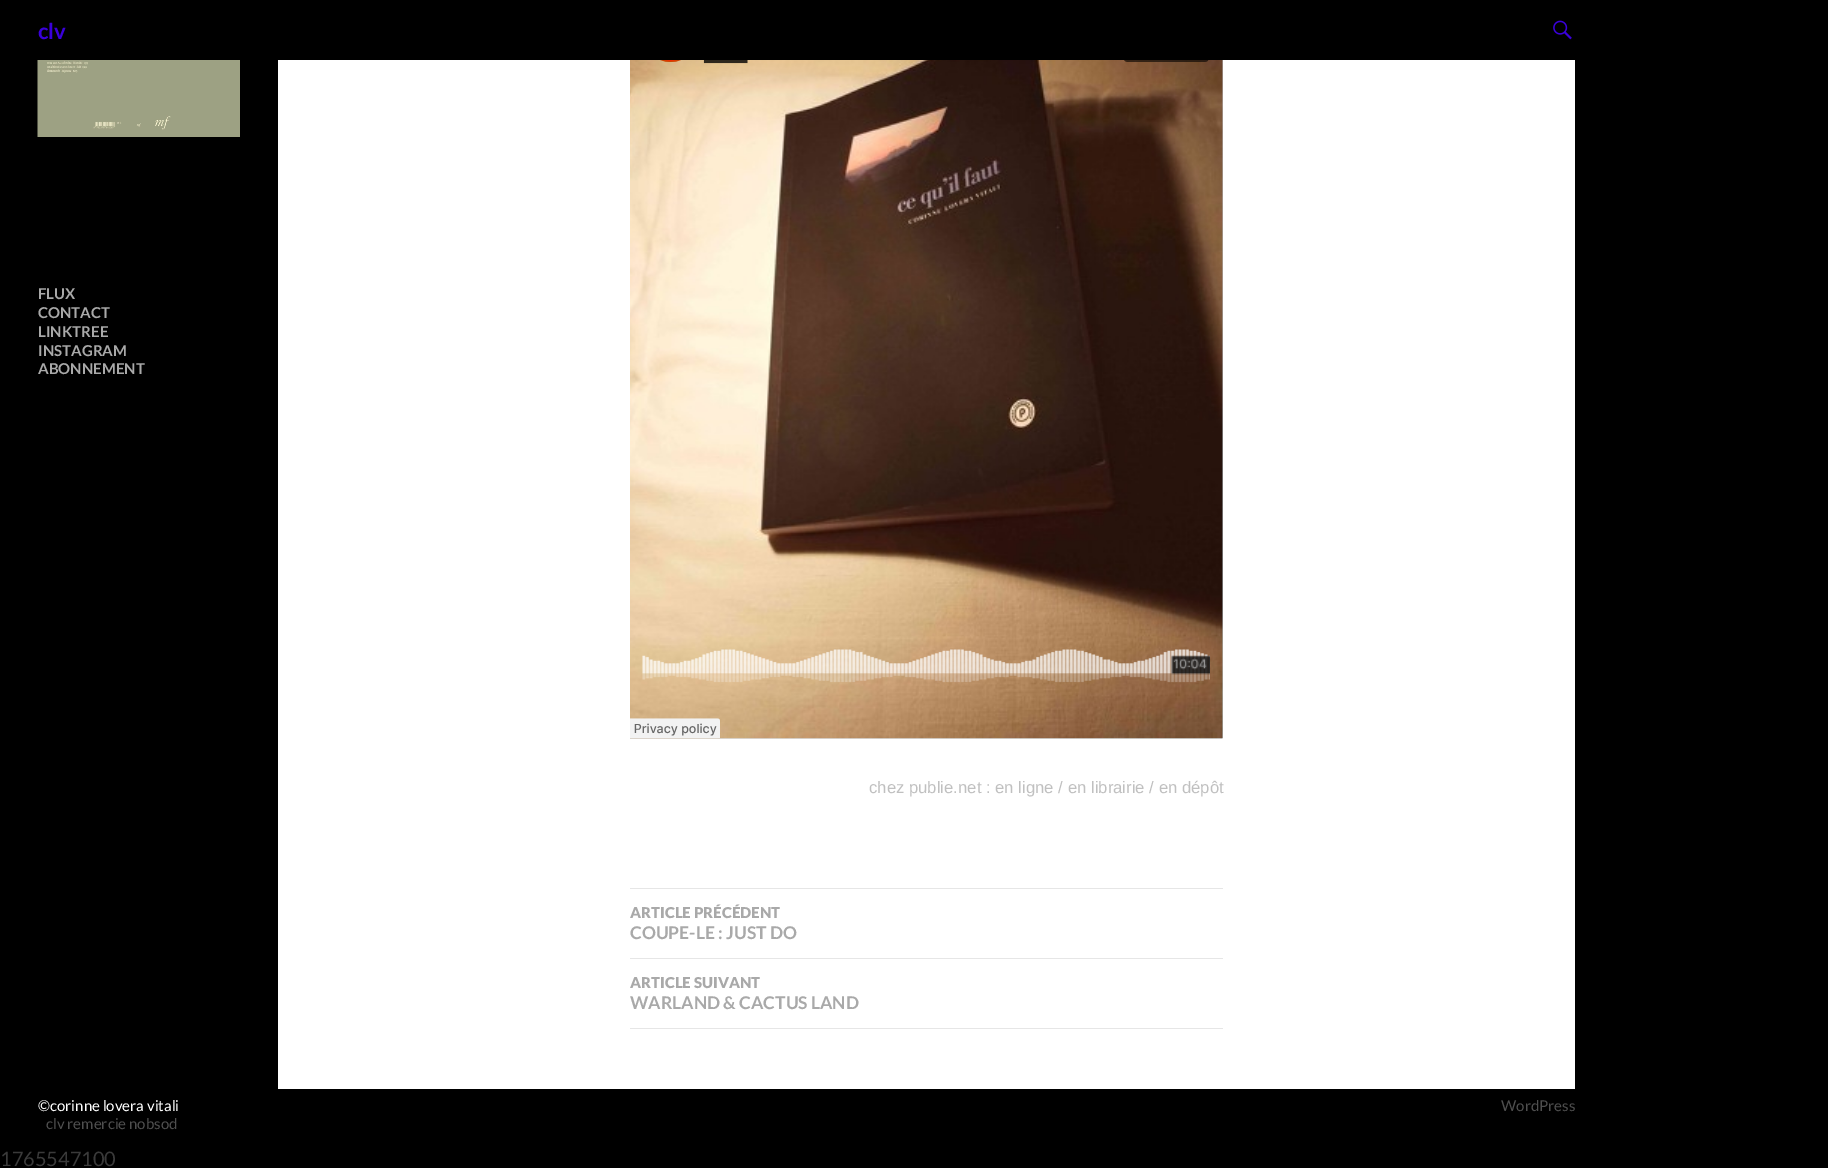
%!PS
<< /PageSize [1828 1168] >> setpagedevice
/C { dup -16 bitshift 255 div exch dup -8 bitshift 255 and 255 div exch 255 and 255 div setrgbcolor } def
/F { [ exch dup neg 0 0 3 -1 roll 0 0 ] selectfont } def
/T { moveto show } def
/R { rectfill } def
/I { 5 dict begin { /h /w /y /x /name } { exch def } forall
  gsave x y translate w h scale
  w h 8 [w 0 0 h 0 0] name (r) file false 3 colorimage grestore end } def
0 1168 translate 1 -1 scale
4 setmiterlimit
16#000000 C
0 0 1828 1168 R
16#FFFFFF C
278 60 1297 1029 R
/Lato-Bold 22 F
16#3A00DB C
(clv) 38 39 T
(1.rgb) 1553 20 19 20 I
(2.rgb) 37 60 203 77 I
/Lato-Bold 15 F
16#A9A9A9 C
(FLUX) 38 299 T
(CONTACT) 38 318 T
(LINKTREE) 38 337 T
(INSTAGRAM) 38 356 T
(ABONNEMENT) 38 374 T
(3.rgb) 630 60 593 679 I
/LiberationSans-Regular 16.7 F
16#C0C0C0 C
(chez publie.net : en ligne / en librairie / en dépôt) 869 793 T
16#E6E6E6 C
630 888 593 1 R
630 958 593 1 R
/Lato-Black 15 F
16#A9A9A9 C
(ARTICLE PRÉCÉDENT) 630 918 T
/Lato-Bold 17.5 F
(COUPE-LE : JUST DO) 630 939 T
16#E6E6E6 C
630 1028 593 1 R
/Lato-Black 15 F
16#A9A9A9 C
(ARTICLE SUIVANT) 630 988 T
/Lato-Bold 17.5 F
(WARLAND & CACTUS LAND) 630 1009 T
/Lato-Regular 15 F
16#FFFFFF C
(©corinne lovera vitali) 38 1111 T
16#4F4F4F C
(WordPress) 1501 1111 T
(clv remercie nobsod) 46 1129 T
/Lato-Regular 20 F
16#3A3A3A C
(1765547100) 0 1166 T
showpage
